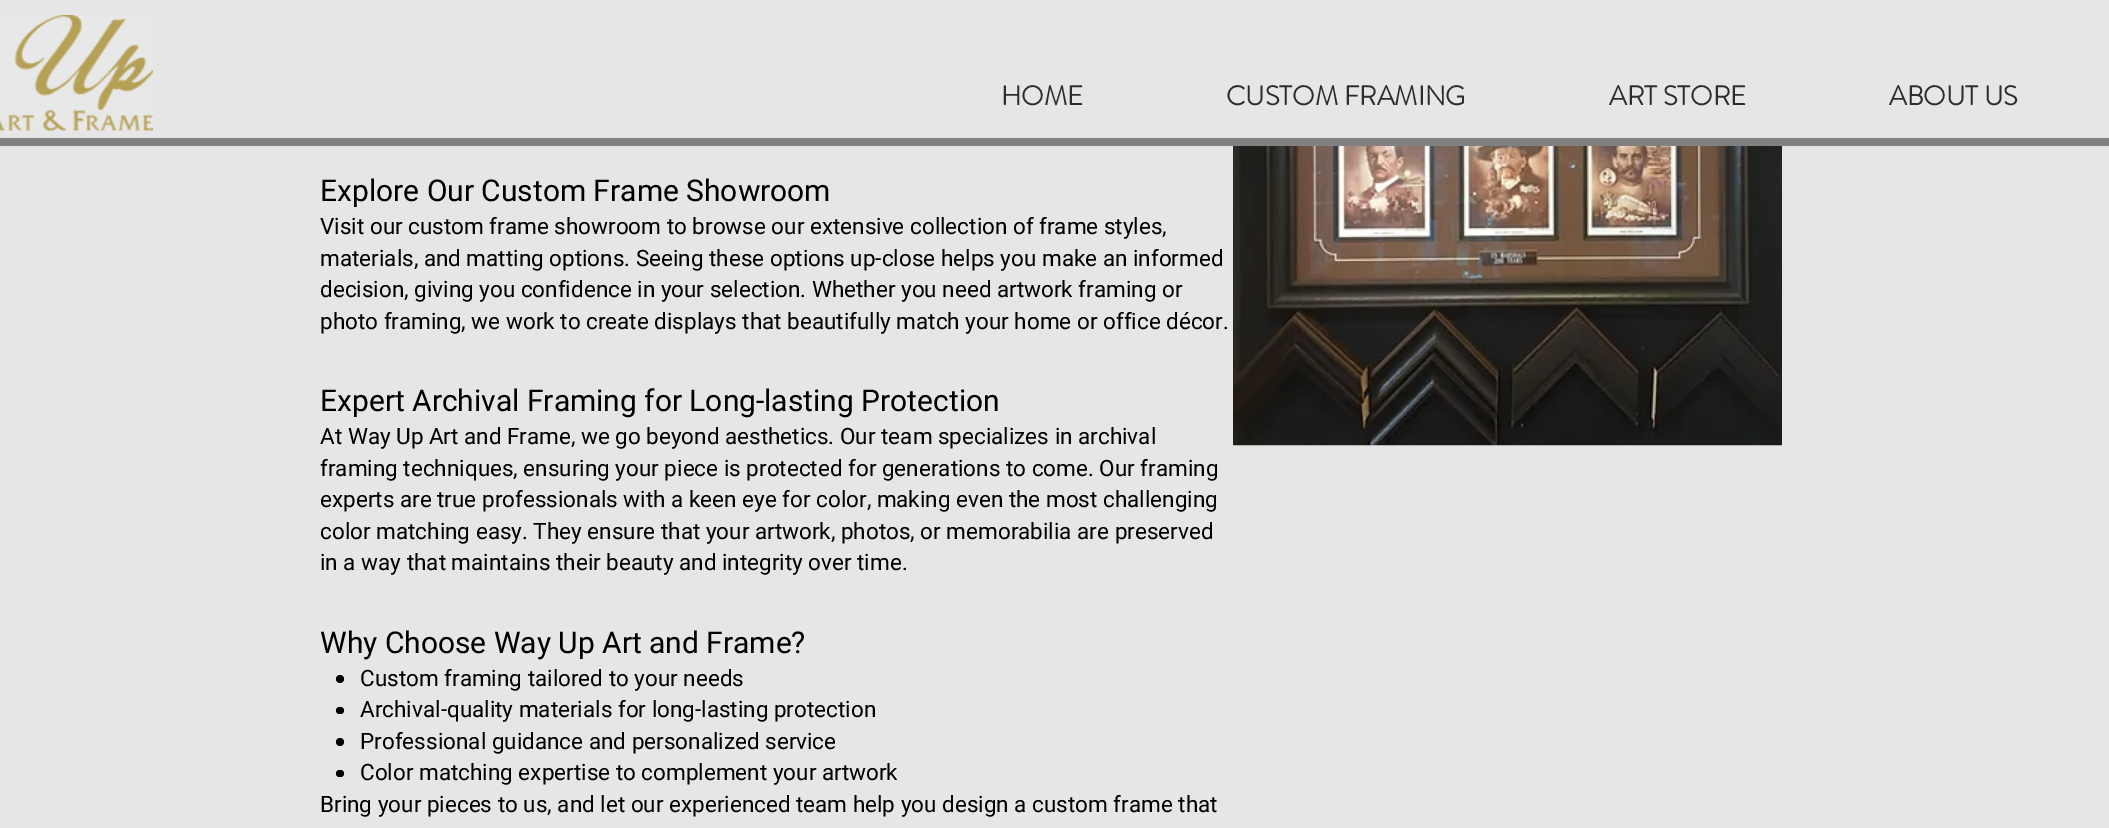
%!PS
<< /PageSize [2109 828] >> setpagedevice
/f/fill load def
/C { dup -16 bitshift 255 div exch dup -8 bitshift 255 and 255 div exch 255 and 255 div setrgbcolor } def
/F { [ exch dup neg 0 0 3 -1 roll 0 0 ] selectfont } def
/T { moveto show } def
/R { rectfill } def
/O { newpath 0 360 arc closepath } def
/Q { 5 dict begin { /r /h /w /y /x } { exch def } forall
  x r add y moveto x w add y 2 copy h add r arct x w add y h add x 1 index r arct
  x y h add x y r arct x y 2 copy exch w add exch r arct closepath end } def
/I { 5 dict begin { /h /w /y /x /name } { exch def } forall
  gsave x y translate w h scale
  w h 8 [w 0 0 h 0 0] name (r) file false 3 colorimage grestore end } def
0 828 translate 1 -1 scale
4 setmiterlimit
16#E6E6E6 C
0 0 2109 828 R
(1.rgb) 0 15 153 116 I
/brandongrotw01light-Bold 27 F
16#2D2D2D C
(HOME) 1001 105 T
(CUSTOM FRAMING) 1226 105 T
(ART STORE) 1609 105 T
(ABOUT US) 1889 105 T
16#818181 C
0 138 2109 8 R
/Roboto-Regular 30 F
16#000000 C
(Explore Our Custom Frame Showroom) 320 201 T
/Roboto-Regular 22.5 F
(Visit our custom frame showroom to browse our extensive collection of frame styles,) 320 234 T
(materials, and matting options. Seeing these options up-close helps you make an informed) 320 266 T
(decision, giving you confidence in your selection. Whether you need artwork framing or) 320 297 T
(photo framing, we work to create displays that beautifully match your home or office décor.) 320 329 T
/Roboto-Regular 30 F
(Expert Archival Framing for Long-lasting Protection) 320 411 T
/Roboto-Regular 22.5 F
(At Way Up Art and Frame, we go beyond aesthetics. Our team specializes in archival) 320 444 T
(framing techniques, ensuring your piece is protected for generations to come. Our framing) 320 476 T
(experts are true professionals with a keen eye for color, making even the most challenging) 320 507 T
(color matching easy. They ensure that your artwork, photos, or memorabilia are preserved) 320 539 T
(in a way that maintains their beauty and integrity over time.) 320 570 T
/Roboto-Regular 30 F
(Why Choose Way Up Art and Frame?) 320 653 T
340 679 4 O f
/Roboto-Regular 22.5 F
(Custom framing tailored to your needs) 360 686 T
336 707 8 7 3.5 Q f
(Archival-quality materials for long-lasting protection) 360 717 T
340 742 4 O f
(Professional guidance and personalized service) 360 749 T
336 770 8 7 3.5 Q f
(Color matching expertise to complement your artwork) 360 780 T
(Bring your pieces to us, and let our experienced team help you design a custom frame that) 320 812 T
(2.rgb) 1233 146 549 300 I
showpage
